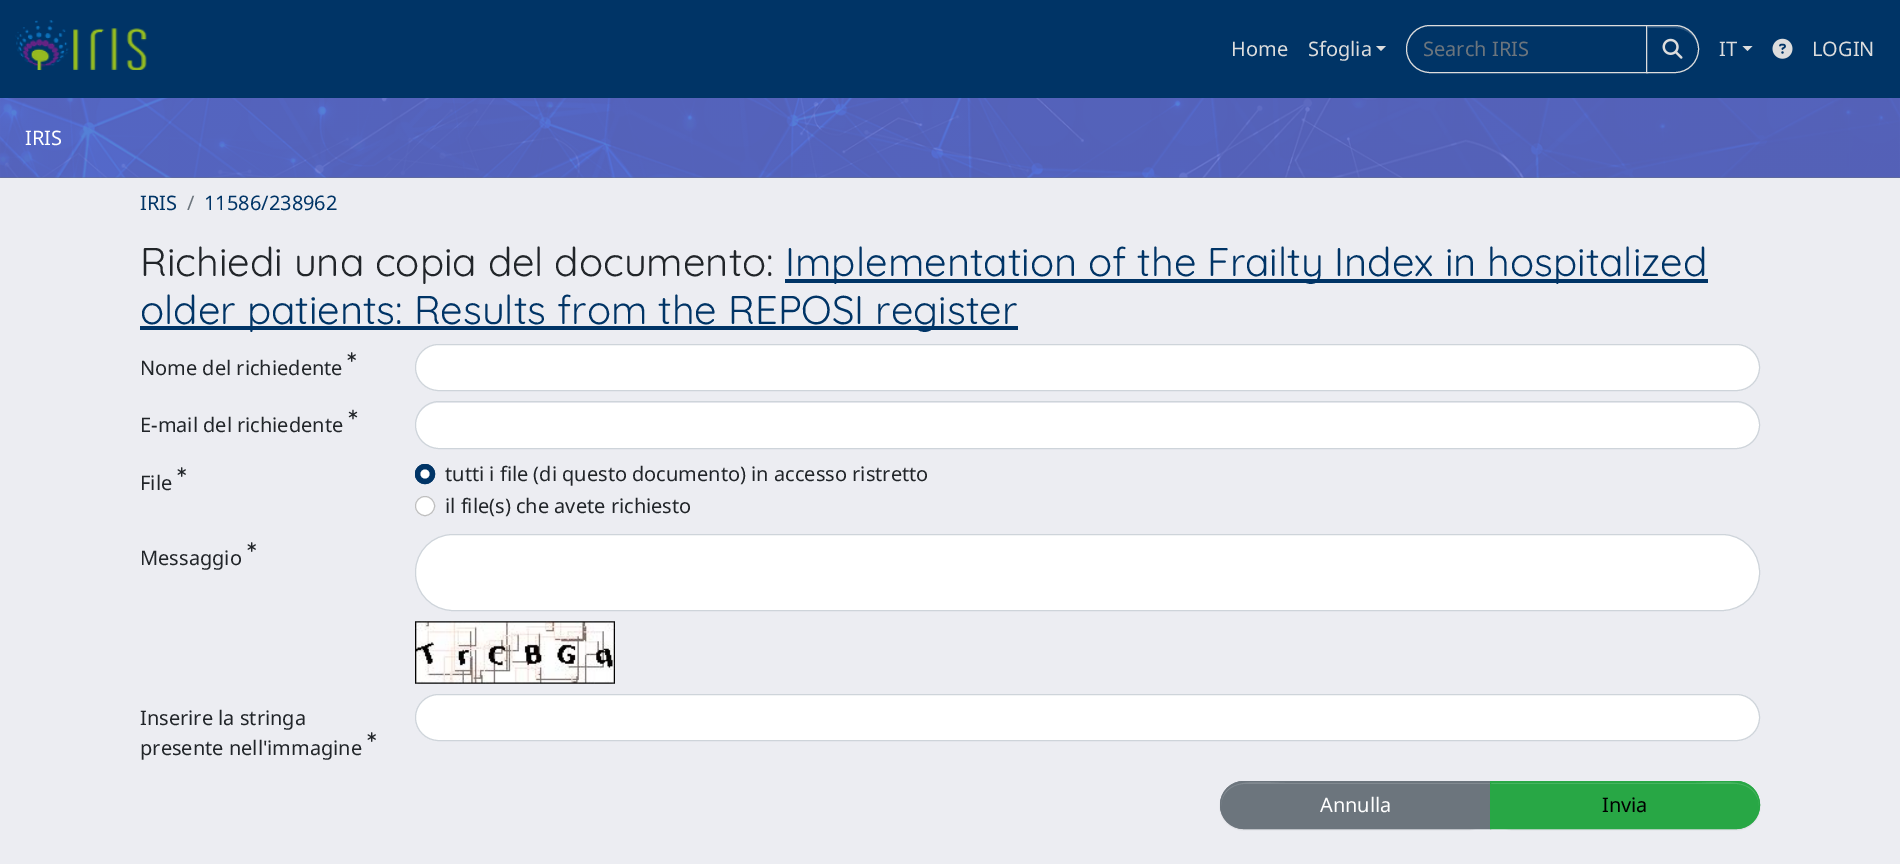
%!PS
<< /PageSize [1900 864] /PageUsesTransparency true >> setpagedevice
/m/moveto load def
/l/rlineto load def
/c/rcurveto load def
/z/closepath load def
/f/fill load def
/s/stroke load def
/q/gsave load def
/Q_/grestore load def
/C { dup -16 bitshift 255 div exch dup -8 bitshift 255 and 255 div exch 255 and 255 div setrgbcolor } def
/F { [ exch dup neg 0 0 3 -1 roll 0 0 ] selectfont } def
/T { moveto show } def
/R { rectfill } def
/A { dup .setfillconstantalpha .setstrokeconstantalpha } def
/O { newpath 0 360 arc closepath } def
/Q { 5 dict begin { /r /h /w /y /x } { exch def } forall
  x r add y moveto x w add y 2 copy h add r arct x w add y h add x 1 index r arct
  x y h add x y r arct x y 2 copy exch w add exch r arct closepath end } def
/S { 12 dict begin { /a /b /q /h /w /y /x } { exch def } forall gsave /was 0 def
  9 -2 -9 { dup b mul 4 div /e exch def 1 sub .425 mul 2.718 exch exp 1 add a .99 .min exch div /now exch def
    1 1 now sub 1 was sub div sub A /was now def
    w h .min e 2 mul add 0 gt { x e sub y e sub w e 2 mul add h e 2 mul add
      q e add b .6 mul add w h .min 2 div e add .min 0 .max Q fill } if } for grestore end } def
/I { 5 dict begin { /h /w /y /x /name } { exch def } forall
  gsave x y translate w h scale
  w h 8 [w 0 0 h 0 0] name (r) file false 3 colorimage grestore end } def
0 .pushpdf14devicefilter
0 864 translate 1 -1 scale
4 setmiterlimit
16#ECEDF2 C
0 0 1900 864 R
16#003466 C
0 0 1900 98 R
(1.rgb) 15 20 132 50 I
/NotoSans-Regular 20 F
16#DDDDDD C
(Home) 1231 56 T
(Sfoglia) 1308 56 T
1376 46 m 10 0 l -5 5 l z f
1430 25.5 m 217.5 0 l 0 47 l -217.5 0 l -13 0 -23.5 -10.5 -23.5 -23.5 c 0 -13 10.5 -23.5 23.5 -23.5 c z s
16#6C757D C
(Search IRIS) 1423 56 T
16#000000 C
1646 26 53 48 24 .5 .07 S
16#003466 C
1646 25 m 29 0 l 13.5 0 24 10.5 24 24 c 0 13.5 -10.5 24 -24 24 c -29 0 l z f
16#26527D C
1648 28 m 27 0 l 12 0 23 10 23 21 c 0 -1 l 0 -12 -10 -22 -22 -22 c -28 0 l z f
16#DDDDDD C
1646.5 25.5 m 28.5 0 l 13 0 23.5 10.5 23.5 23.5 c 0 13 -10.5 23.5 -23.5 23.5 c -28.5 0 l z s
(2.rgb) 1662 38 21 21 I
(IT) 1719 56 T
1742.5 46 m 10 0 l -5 5 l z f
(3.rgb) 1772 38 21 21 I
(LOGIN) 1812 56 T
16#6C757D C
0 98 1900 80 R
(4.rgb) 0 98 1900 80 I
16#FFFFFF C
(IRIS) 25 145 T
16#003466 C
(IRIS) 140 210 T
16#6C757D C
(/) 187 210 T
16#003466 C
(11586/238962) 204 210 T
/Quicksand-Light 40 F
16#212529 C
(Richiedi una copia del documento:) 140 276 T
16#003466 C
785 279 923 4 R
(Implementation of the Frailty Index in hospitalized) 785 276 T
140 326 878 4 R
(older patients: Results from the REPOSI register) 140 324 T
(5.rgb) 347 352 9 10 I
/NotoSans-Regular 20 F
16#212529 C
(Nome del richiedente) 140 375 T
16#FFFFFF C
415.5 344.5 1344 46 23 Q q f Q_
16#CED4DA C
s
(6.rgb) 348 409 10 11 I
16#212529 C
(E-mail del richiedente) 140 432 T
16#FFFFFF C
416 403 1343 45 22.5 Q f
16#CED4DA C
415.5 401.5 1344 47 23.5 Q s
(5.rgb) 177 467 9 10 I
16#212529 C
(File) 140 490 T
16#003466 C
425 474 10 O f
16#FFFFFF C
425 474 4.5 O f
16#003466 C
425 474 9.5 O s
16#212529 C
(tutti i file \(di questo documento\) in accesso ristretto) 445 481 T
16#FFFFFF C
425 506 10 O f
0.25 A
16#000000 C
425 506 9.5 O s
1 A
16#212529 C
(il file\(s\) che avete richiesto) 445 513 T
(5.rgb) 247 542 9 10 I
(Messaggio) 140 565 T
16#FFFFFF C
416 535 1343 75 36 Q f
16#CED4DA C
415.5 534.5 1344 76 37.5 Q s
(7.rgb) 415 621 200 63 I
16#212529 C
(Inserire la stringa) 140 725 T
(5.rgb) 367 732 9 10 I
(presente nell'immagine) 140 755 T
16#FFFFFF C
415.5 694.5 1344 46 23 Q q f Q_
16#CED4DA C
s
16#000000 C
1220 783 271 47 23.5 .5 .07 S
16#6C757D C
1244 781 m 247 0 l 0 48 l -247 0 l -13.5 0 -24 -10.5 -24 -24 c 0 -13.5 10.5 -24 24 -24 c z f
16#828A91 C
1244 784 m 246 0 l 0 -1 l -205 0 l -17 0 -64 -9 -64 23 c 0 -12 10 -22 23 -22 c z f
16#6C757D C
1244 781.5 m 246.5 0 l 0 47 l -246.5 0 l -13 0 -23.5 -10.5 -23.5 -23.5 c 0 -13 10.5 -23.5 23.5 -23.5 c z s
16#FFFFFF C
(Annulla) 1320 812 T
16#000000 C
1490 783 270 47 23.5 .5 .07 S
16#28A745 C
1490 781 m 246 0 l 13.5 0 24 10.5 24 24 c 0 13.5 -10.5 24 -24 24 c -246 0 l z f
16#48B461 C
1491 784 m 245 0 l 13 0 23 10 23 22 c 0 -32 -47 -23 -63 -23 c -205 0 l z f
16#28A745 C
1490.5 781.5 m 245.5 0 l 13 0 23.5 10.5 23.5 23.5 c 0 13 -10.5 23.5 -23.5 23.5 c -245.5 0 l z s
16#000000 C
(Invia) 1602 812 T
.poppdf14devicefilter showpage
